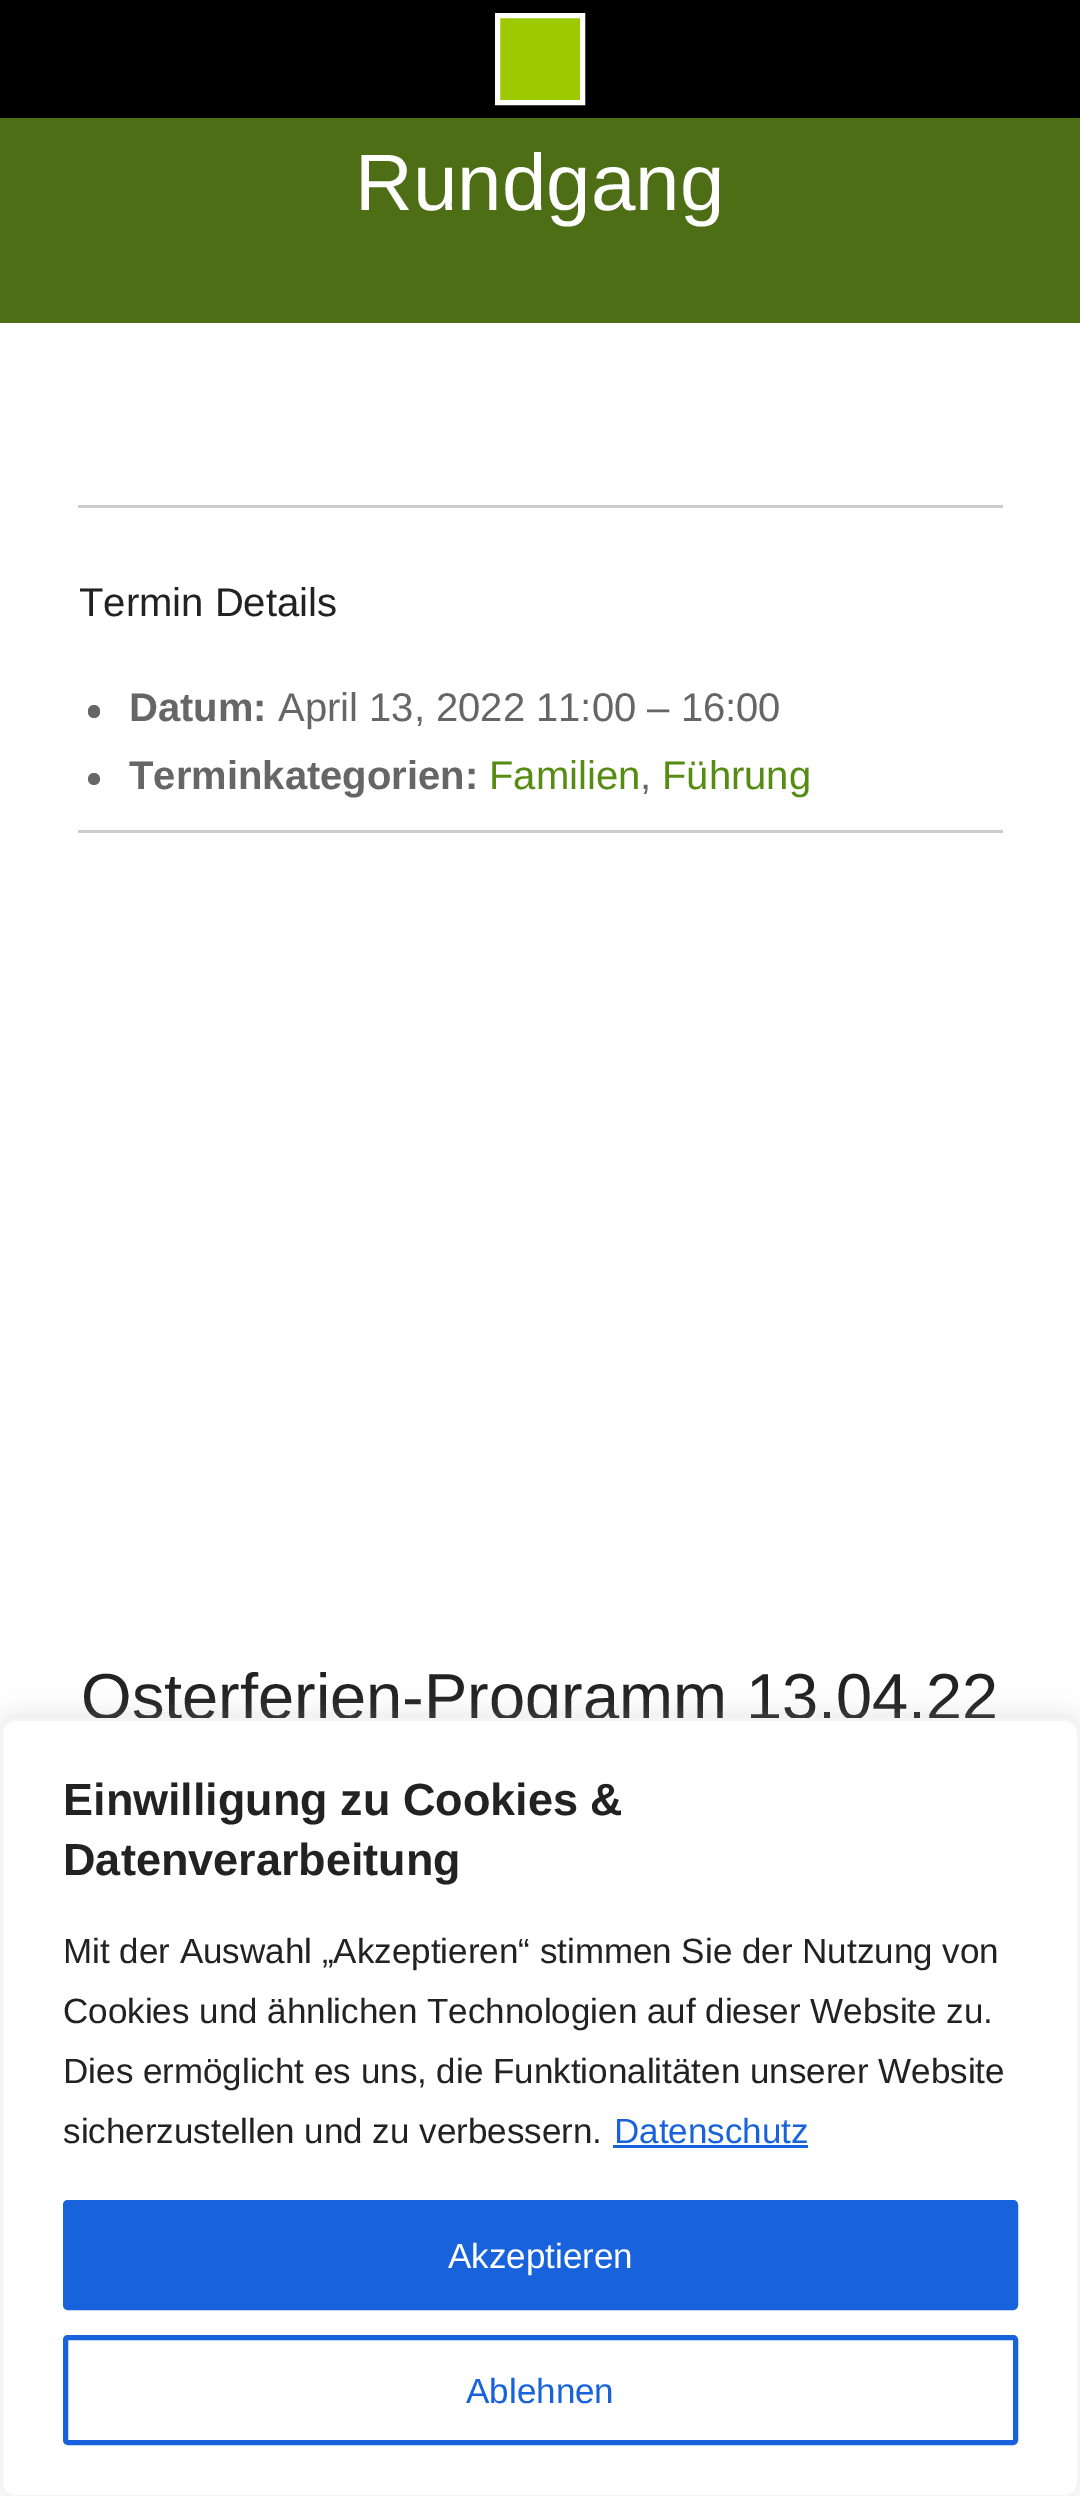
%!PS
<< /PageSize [1080 2496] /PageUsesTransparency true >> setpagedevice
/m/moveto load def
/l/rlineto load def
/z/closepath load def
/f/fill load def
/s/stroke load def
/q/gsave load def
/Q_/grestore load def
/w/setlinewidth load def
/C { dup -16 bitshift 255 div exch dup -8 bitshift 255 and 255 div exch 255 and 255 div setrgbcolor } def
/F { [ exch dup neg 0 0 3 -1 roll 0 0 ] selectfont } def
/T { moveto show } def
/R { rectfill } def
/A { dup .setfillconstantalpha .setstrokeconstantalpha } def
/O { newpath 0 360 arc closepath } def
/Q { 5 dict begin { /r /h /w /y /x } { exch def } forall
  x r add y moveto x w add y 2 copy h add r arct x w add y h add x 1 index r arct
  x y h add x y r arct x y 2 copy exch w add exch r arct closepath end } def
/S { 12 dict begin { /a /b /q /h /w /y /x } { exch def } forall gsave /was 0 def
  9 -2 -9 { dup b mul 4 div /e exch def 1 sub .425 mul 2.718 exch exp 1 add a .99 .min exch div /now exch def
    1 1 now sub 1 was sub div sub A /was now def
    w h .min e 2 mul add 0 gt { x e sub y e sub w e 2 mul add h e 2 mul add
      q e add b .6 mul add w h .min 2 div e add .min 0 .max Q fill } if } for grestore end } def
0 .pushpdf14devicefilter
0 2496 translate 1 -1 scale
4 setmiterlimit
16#FFFFFF C
0 0 1080 2496 R
16#000000 C
0 0 1080 118 R
16#9CC900 C
497.5 15.5 m 85 0 l 0 87 l -85 0 l z q f Q_
16#FFFFFE C
5 w
s
16#4E6E16 C
0 118 1080 205 R
/LiberationSans-Regular 80 F
16#FFFFFF C
(Rundgang) 355 210 T
16#CCCCCC C
78 505 925 3 R
/LiberationSans-Regular 40 F
16#222222 C
(Termin Details) 79 616 T
16#666666 C
88 705 12 13 6 Q f
/LiberationSans-Bold 40 F
(Datum:) 129 721 T
/LiberationSans-Regular 40 F
(April 13, 2022 11:00 – 16:00) 278 721 T
94 779 6 O f
/LiberationSans-Bold 40 F
(Terminkategorien:) 129 789 T
/LiberationSans-Regular 40 F
16#568C11 C
(Familien) 489 789 T
(Führung) 662 789 T
16#666666 C
(,) 640 789 T
16#CCCCCC C
78 830 925 3 R
/LiberationSans-Regular 65 F
16#222222 C
(Osterferien-Programm 13.04.22) 81 1719 T
16#ACABAB C
0 1715 1080 780 15 12.5 .3 S
16#FFFFFF C
1.5 1719.5 1077 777 13.5 Q q f Q_
16#F4F4F4 C
3 w
s
/LiberationSans-Bold 45 F
16#222222 C
(Einwilligung zu Cookies &) 63 1815 T
(Datenverarbeitung) 63 1875 T
/LiberationSans-Regular 35 F
(Mit der Auswahl „Akzeptieren“ stimmen Sie der Nutzung von) 63 1963 T
(Cookies und ähnlichen Technologien auf dieser Website zu.) 63 2023 T
(Dies ermöglicht es uns, die Funktionalitäten unserer Website) 63 2083 T
(sicherzustellen und zu verbessern.) 63 2143 T
16#1863DC C
(Datenschutz) 614 2143 T
613 2145 195 3 R
65.5 2202.5 950 105 2.5 Q q f Q_
5 w
s
16#FFFFFF C
(Akzeptieren) 448 2268 T
16#1863DC C
65.5 2337.5 950 105 2.5 Q s
(Ablehnen) 466 2403 T
.poppdf14devicefilter showpage
